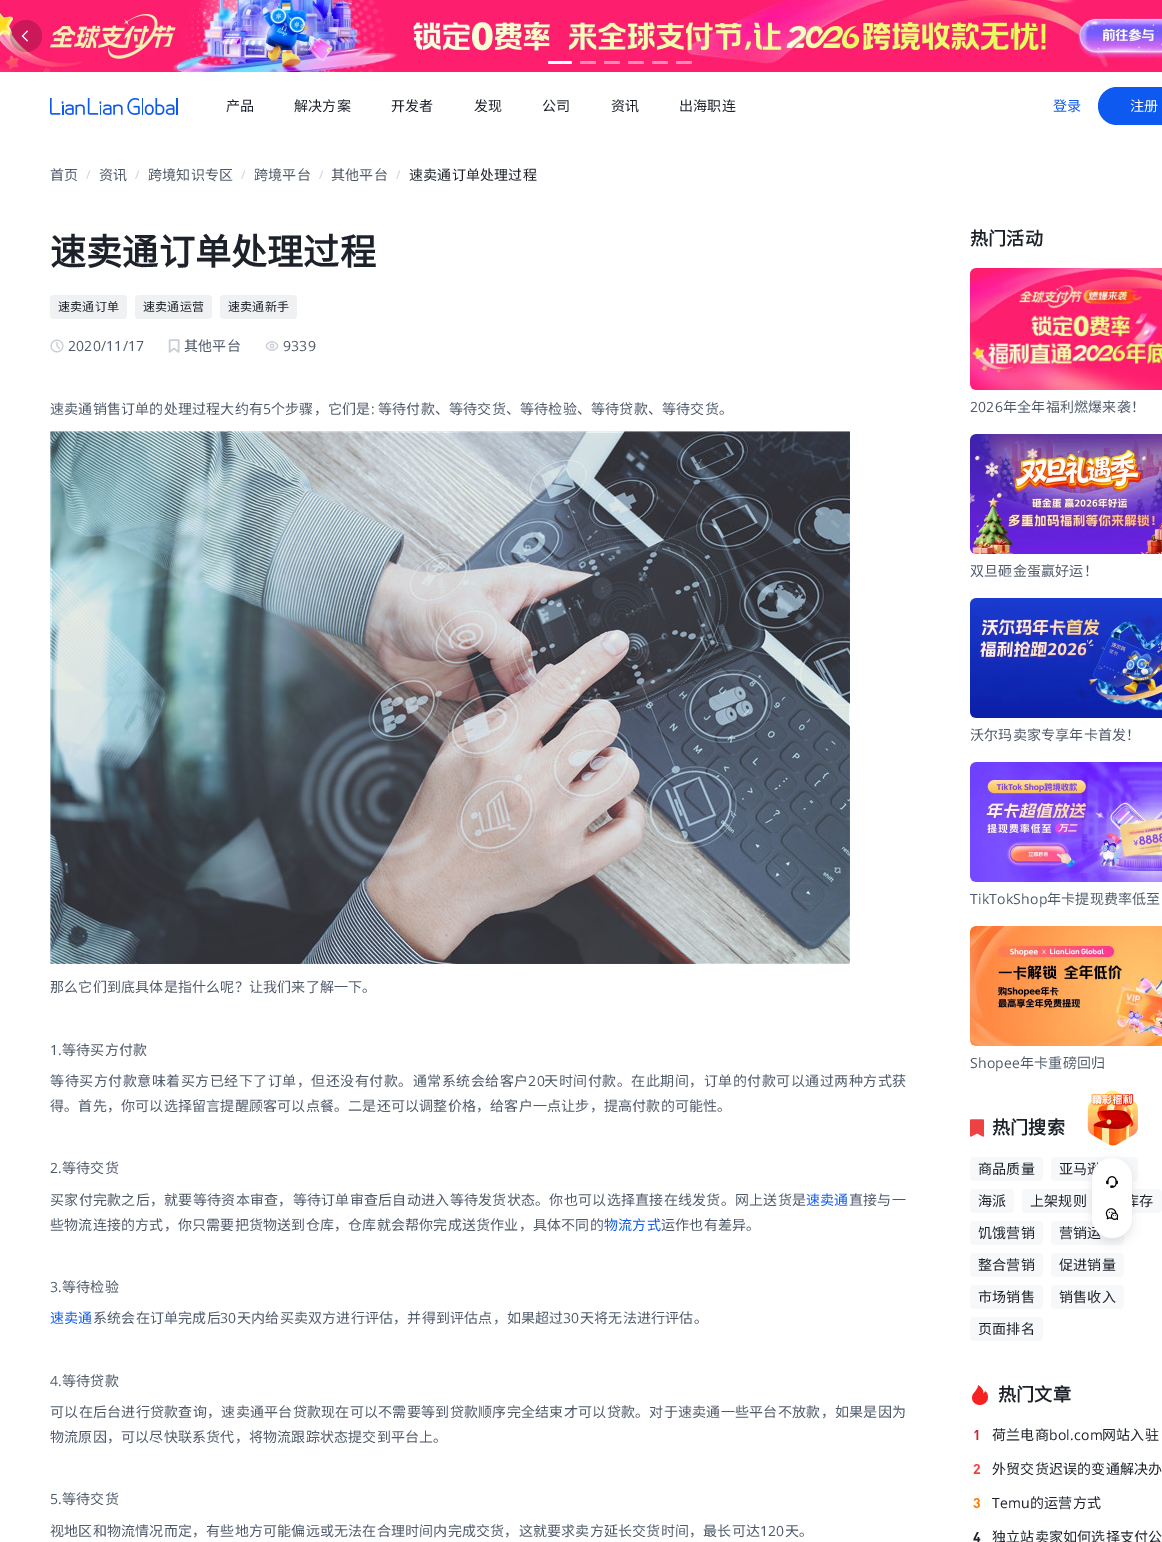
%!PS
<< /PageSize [1162 1542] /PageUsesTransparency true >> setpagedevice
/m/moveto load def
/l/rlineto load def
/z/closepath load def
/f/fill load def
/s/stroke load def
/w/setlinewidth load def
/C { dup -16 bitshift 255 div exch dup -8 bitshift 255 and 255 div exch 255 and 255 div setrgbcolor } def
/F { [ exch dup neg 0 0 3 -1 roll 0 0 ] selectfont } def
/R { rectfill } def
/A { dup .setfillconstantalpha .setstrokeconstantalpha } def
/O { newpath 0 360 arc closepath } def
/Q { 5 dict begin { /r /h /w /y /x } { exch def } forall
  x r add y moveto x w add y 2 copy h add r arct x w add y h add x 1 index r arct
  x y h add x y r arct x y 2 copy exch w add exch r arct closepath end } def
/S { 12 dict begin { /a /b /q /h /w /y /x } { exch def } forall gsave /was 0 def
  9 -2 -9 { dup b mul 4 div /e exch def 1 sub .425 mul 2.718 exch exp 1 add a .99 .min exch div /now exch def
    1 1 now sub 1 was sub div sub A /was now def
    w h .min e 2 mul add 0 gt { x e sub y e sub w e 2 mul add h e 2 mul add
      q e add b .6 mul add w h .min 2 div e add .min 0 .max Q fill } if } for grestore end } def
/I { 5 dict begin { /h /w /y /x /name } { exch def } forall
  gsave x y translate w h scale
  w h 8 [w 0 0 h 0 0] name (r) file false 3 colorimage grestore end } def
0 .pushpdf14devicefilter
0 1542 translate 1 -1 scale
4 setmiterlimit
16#FFFFFF C
0 0 1162 1542 R
(1.rgb) 0 0 1162 72 I
0.2 A
16#000000 C
26 36 16 O f
1 A
(2.rgb) 21 30 7 12 I
16#FFFFFF C
548 61 24 3 1.5 Q f
16#FE8AB4 C
580 61 16 3 1.5 Q f
604 61 16 3 1.5 Q f
628 61 16 3 1.5 Q f
652 61 16 3 1.5 Q f
676 61 16 3 1.5 Q f
(3.rgb) 50 98 128 17 I
/NotoSansCJKSC-Regular 14 F
16#1D2129 C
226 111 m .2 0 (产品) ashow
294 111 m .2 0 (解决方案) ashow
391 111 m .2 0 (开发者) ashow
474 111 m .2 0 (发现) ashow
542 111 m .2 0 (公司) ashow
611 111 m .2 0 (资讯) ashow
679 111 m .2 0 (出海职连) ashow
16#0E59F0 C
1053 111 m .2 0 (登录) ashow
1098 87 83 38 19 Q f
16#FFFFFF C
1130 111 m .2 0 (注册) ashow
16#4E5969 C
50 180 m .2 0 (首页) ashow
/OpenSans-Regular 12 F
16#C9CDD4 C
86 179 m .2 0 (/) ashow
/NotoSansCJKSC-Regular 14 F
16#4E5969 C
99 180 m .2 0 (资讯) ashow
/OpenSans-Regular 12 F
16#C9CDD4 C
135 179 m .2 0 (/) ashow
/NotoSansCJKSC-Regular 14 F
16#4E5969 C
148 180 m .2 0 (跨境知识专区) ashow
/OpenSans-Regular 12 F
16#C9CDD4 C
241 179 m .2 0 (/) ashow
/NotoSansCJKSC-Regular 14 F
16#4E5969 C
254 180 m .2 0 (跨境平台) ashow
/OpenSans-Regular 12 F
16#C9CDD4 C
319 179 m .2 0 (/) ashow
/NotoSansCJKSC-Regular 14 F
16#4E5969 C
331 180 m .2 0 (其他平台) ashow
/OpenSans-Regular 12 F
16#C9CDD4 C
396 179 m .2 0 (/) ashow
/NotoSansCJKSC-Regular 14 F
16#1D2129 C
409 180 m .2 0 (速卖通订单处理过程) ashow
/NotoSansCJKSC-Bold 36 F
50 265 m .2 0 (速卖通订单处理过程) ashow
16#EFF1F3 C
50 295 77 24 4 Q f
/NotoSansCJKSC-Regular 12 F
16#1D2129 C
58 311 m .2 0 (速卖通订单) ashow
16#EFF1F3 C
135 295 77 24 4 Q f
16#1D2129 C
143 311 m .2 0 (速卖通运营) ashow
16#EFF1F3 C
220 295 77 24 4 Q f
16#1D2129 C
228 311 m .2 0 (速卖通新手) ashow
(4.rgb) 50 339 14 14 I
/OpenSans-Regular 14 F
16#4E5969 C
68 351 m .2 0 (2020/11/17) ashow
16#C9CDD4 C
1.4 w
1 setlinejoin
169.5 340 m 9 0 l 0 12 l -4.5 -3.5 l -4.5 3.5 l z s
/NotoSansCJKSC-Regular 14 F
16#4E5969 C
184 351 m .2 0 (其他平台) ashow
(5.rgb) 265 341 14 10 I
/OpenSans-Regular 14 F
283 351 m .2 0 (9339) ashow
/NotoSansCJKSC-Regular 14 F
50 414 m .2 0 (速卖通销售订单的处理过程大约有) ashow
/OpenSans-Regular 14 F
263 414 m .2 0 (5) ashow
/NotoSansCJKSC-Regular 14 F
271 414 m .2 0 (个步骤，它们是) ashow
/OpenSans-Regular 14 F
371 414 m .2 0 (:) ashow
/NotoSansCJKSC-Regular 14 F
378 414 m .2 0 (等待付款、等待交货、等待检验、等待贷款、等待交货。) ashow
(6.rgb) 50 431 800 533 I
50 992 m .2 0 (那么它们到底具体是指什么呢？让我们来了解一下。) ashow
/OpenSans-Regular 14 F
50 1055 m .2 0 (1.) ashow
/NotoSansCJKSC-Regular 14 F
62 1055 m .2 0 (等待买方付款) ashow
50 1086 m .5 0 (等待买方付款意味着买方已经下了订单，但还没有付款。通常系统会给客户) ashow
/OpenSans-Regular 14 F
528 1086 m .5 0 (20) ashow
/NotoSansCJKSC-Regular 14 F
544 1086 m .5 0 (天时间付款。在此期间，订单的付款可以通过两种方式获) ashow
50 1111 m .2 0 (得。首先，你可以选择留言提醒顾客可以点餐。二是还可以调整价格，给客户一点让步，提高付款的可能性。) ashow
/OpenSans-Regular 14 F
50 1173 m .2 0 (2.) ashow
/NotoSansCJKSC-Regular 14 F
62 1173 m .2 0 (等待交货) ashow
50 1205 m .27 0 (买家付完款之后，就要等待资本审查，等待订单审查后自动进入等待发货状态。你也可以选择直接在线发货。网上送货是) ashow
16#0E59F0 C
806 1205 m .2 0 (速卖通) ashow
16#4E5969 C
849 1205 m .2 0 (直接与一) ashow
50 1230 m .2 0 (些物流连接的方式，你只需要把货物送到仓库，仓库就会帮你完成送货作业，具体不同的) ashow
16#0E59F0 C
604 1230 m .2 0 (物流方式) ashow
16#4E5969 C
661 1230 m .2 0 (运作也有差异。) ashow
/OpenSans-Regular 14 F
50 1292 m .2 0 (3.) ashow
/NotoSansCJKSC-Regular 14 F
62 1292 m .2 0 (等待检验) ashow
16#0E59F0 C
50 1323 m .2 0 (速卖通) ashow
16#4E5969 C
93 1323 m .2 0 (系统会在订单完成后) ashow
/OpenSans-Regular 14 F
220 1323 m .2 0 (30) ashow
/NotoSansCJKSC-Regular 14 F
237 1323 m .2 0 (天内给买卖双方进行评估，并得到评估点，如果超过) ashow
/OpenSans-Regular 14 F
563 1323 m .2 0 (30) ashow
/NotoSansCJKSC-Regular 14 F
580 1323 m .2 0 (天将无法进行评估。) ashow
/OpenSans-Regular 14 F
50 1386 m .2 0 (4.) ashow
/NotoSansCJKSC-Regular 14 F
62 1386 m .2 0 (等待贷款) ashow
50 1417 m .27 0 (可以在后台进行贷款查询，速卖通平台贷款现在可以不需要等到贷款顺序完全结束才可以贷款。对于速卖通一些平台不放款，如果是因为) ashow
50 1442 m .2 0 (物流原因，可以尽快联系货代，将物流跟踪状态提交到平台上。) ashow
/OpenSans-Regular 14 F
50 1504 m .2 0 (5.) ashow
/NotoSansCJKSC-Regular 14 F
62 1504 m .2 0 (等待交货) ashow
50 1536 m .2 0 (视地区和物流情况而定，有些地方可能偏远或无法在合理时间内完成交货，这就要求卖方延长交货时间，最长可达) ashow
/OpenSans-Regular 14 F
760 1536 m .2 0 (120) ashow
/NotoSansCJKSC-Regular 14 F
785 1536 m .2 0 (天。) ashow
/NotoSansCJKSC-Bold 18 F
16#1D2129 C
970 245 m .2 0 (热门活动) ashow
(7.rgb) 970 268 192 122 I
/OpenSans-Regular 14 F
16#4E5969 C
970 412 m .2 0 (2026) ashow
/NotoSansCJKSC-Regular 14 F
1003 412 m .2 0 (年全年福利燃爆来袭！) ashow
(8.rgb) 970 434 192 120 I
970 576 m .2 0 (双旦砸金蛋赢好运！) ashow
(9.rgb) 970 598 192 120 I
970 740 m .2 0 (沃尔玛卖家专享年卡首发！) ashow
(10.rgb) 970 762 192 120 I
/OpenSans-Regular 14 F
970 904 m .2 0 (TikTokShop) ashow
/NotoSansCJKSC-Regular 14 F
1047 904 m .2 0 (年卡提现费率低至) ashow
(11.rgb) 970 926 192 120 I
/OpenSans-Regular 14 F
970 1068 m .2 0 (Shopee) ashow
/NotoSansCJKSC-Regular 14 F
1020 1068 m .2 0 (年卡重磅回归) ashow
(12.rgb) 970 1119 14 18 I
/NotoSansCJKSC-Bold 18 F
16#1D2129 C
992 1134 m .2 0 (热门搜索) ashow
16#F6F8FA C
970 1157 73 24 4 Q f
/NotoSansCJKSC-Regular 14 F
16#1D2129 C
978 1174 m .2 0 (商品质量) ashow
16#F6F8FA C
1051 1157 87 24 4 Q f
16#1D2129 C
1059 1174 m .2 0 (亚马逊) ashow
16#F6F8FA C
970 1189 44 24 4 Q f
16#1D2129 C
978 1206 m .2 0 (海派) ashow
16#F6F8FA C
1022 1189 73 24 4 Q f
16#1D2129 C
1030 1206 m .2 0 (上架规则) ashow
16#F6F8FA C
1103 1189 59 24 4 Q f
16#1D2129 C
1125 1206 m .2 0 (库存) ashow
16#F6F8FA C
970 1221 73 24 4 Q f
16#1D2129 C
978 1238 m .2 0 (饥饿营销) ashow
16#F6F8FA C
1051 1221 73 24 4 Q f
16#1D2129 C
1059 1238 m .2 0 (营销运) ashow
16#F6F8FA C
970 1253 73 24 4 Q f
16#1D2129 C
978 1270 m .2 0 (整合营销) ashow
16#F6F8FA C
1051 1253 73 24 4 Q f
16#1D2129 C
1059 1270 m .2 0 (促进销量) ashow
16#F6F8FA C
970 1285 73 24 4 Q f
16#1D2129 C
978 1302 m .2 0 (市场销售) ashow
16#F6F8FA C
1051 1285 73 24 4 Q f
16#1D2129 C
1059 1302 m .2 0 (销售收入) ashow
16#F6F8FA C
970 1317 73 24 4 Q f
16#1D2129 C
978 1334 m .2 0 (页面排名) ashow
(13.rgb) 972 1385 16 20 I
/NotoSansCJKSC-Bold 18 F
998 1401 m .2 0 (热门文章) ashow
/DIN-Bold 14 F
16#CB2634 C
973 1440 m .2 0 (1) ashow
/NotoSansCJKSC-Regular 14 F
16#1D2129 C
992 1440 m .2 0 (荷兰电商) ashow
/OpenSans-Regular 14 F
1049 1440 m .2 0 (bol.com) ashow
/NotoSansCJKSC-Regular 14 F
1102 1440 m .2 0 (网站入驻) ashow
/DIN-Bold 14 F
16#F53F3F C
973 1474 m .2 0 (2) ashow
/NotoSansCJKSC-Regular 14 F
16#1D2129 C
992 1474 m .2 0 (外贸交货迟误的变通解决办) ashow
/DIN-Bold 14 F
16#FF7D00 C
973 1508 m .2 0 (3) ashow
/OpenSans-Regular 14 F
16#1D2129 C
992 1508 m .2 0 (Temu) ashow
/NotoSansCJKSC-Regular 14 F
1030 1508 m .2 0 (的运营方式) ashow
/DIN-Bold 14 F
973 1542 m .2 0 (4) ashow
/NotoSansCJKSC-Regular 14 F
992 1542 m .2 0 (独立站卖家如何选择支付公) ashow
(14.rgb) 1087 1090 51 56 I
16#000000 C
1092 1162 40 80 20 5 .1 S
16#FFFFFF C
1092 1158 40 80 20 Q f
(15.rgb) 1106 1176 12 12 I
(16.rgb) 1105 1208 14 12 I
.poppdf14devicefilter showpage
